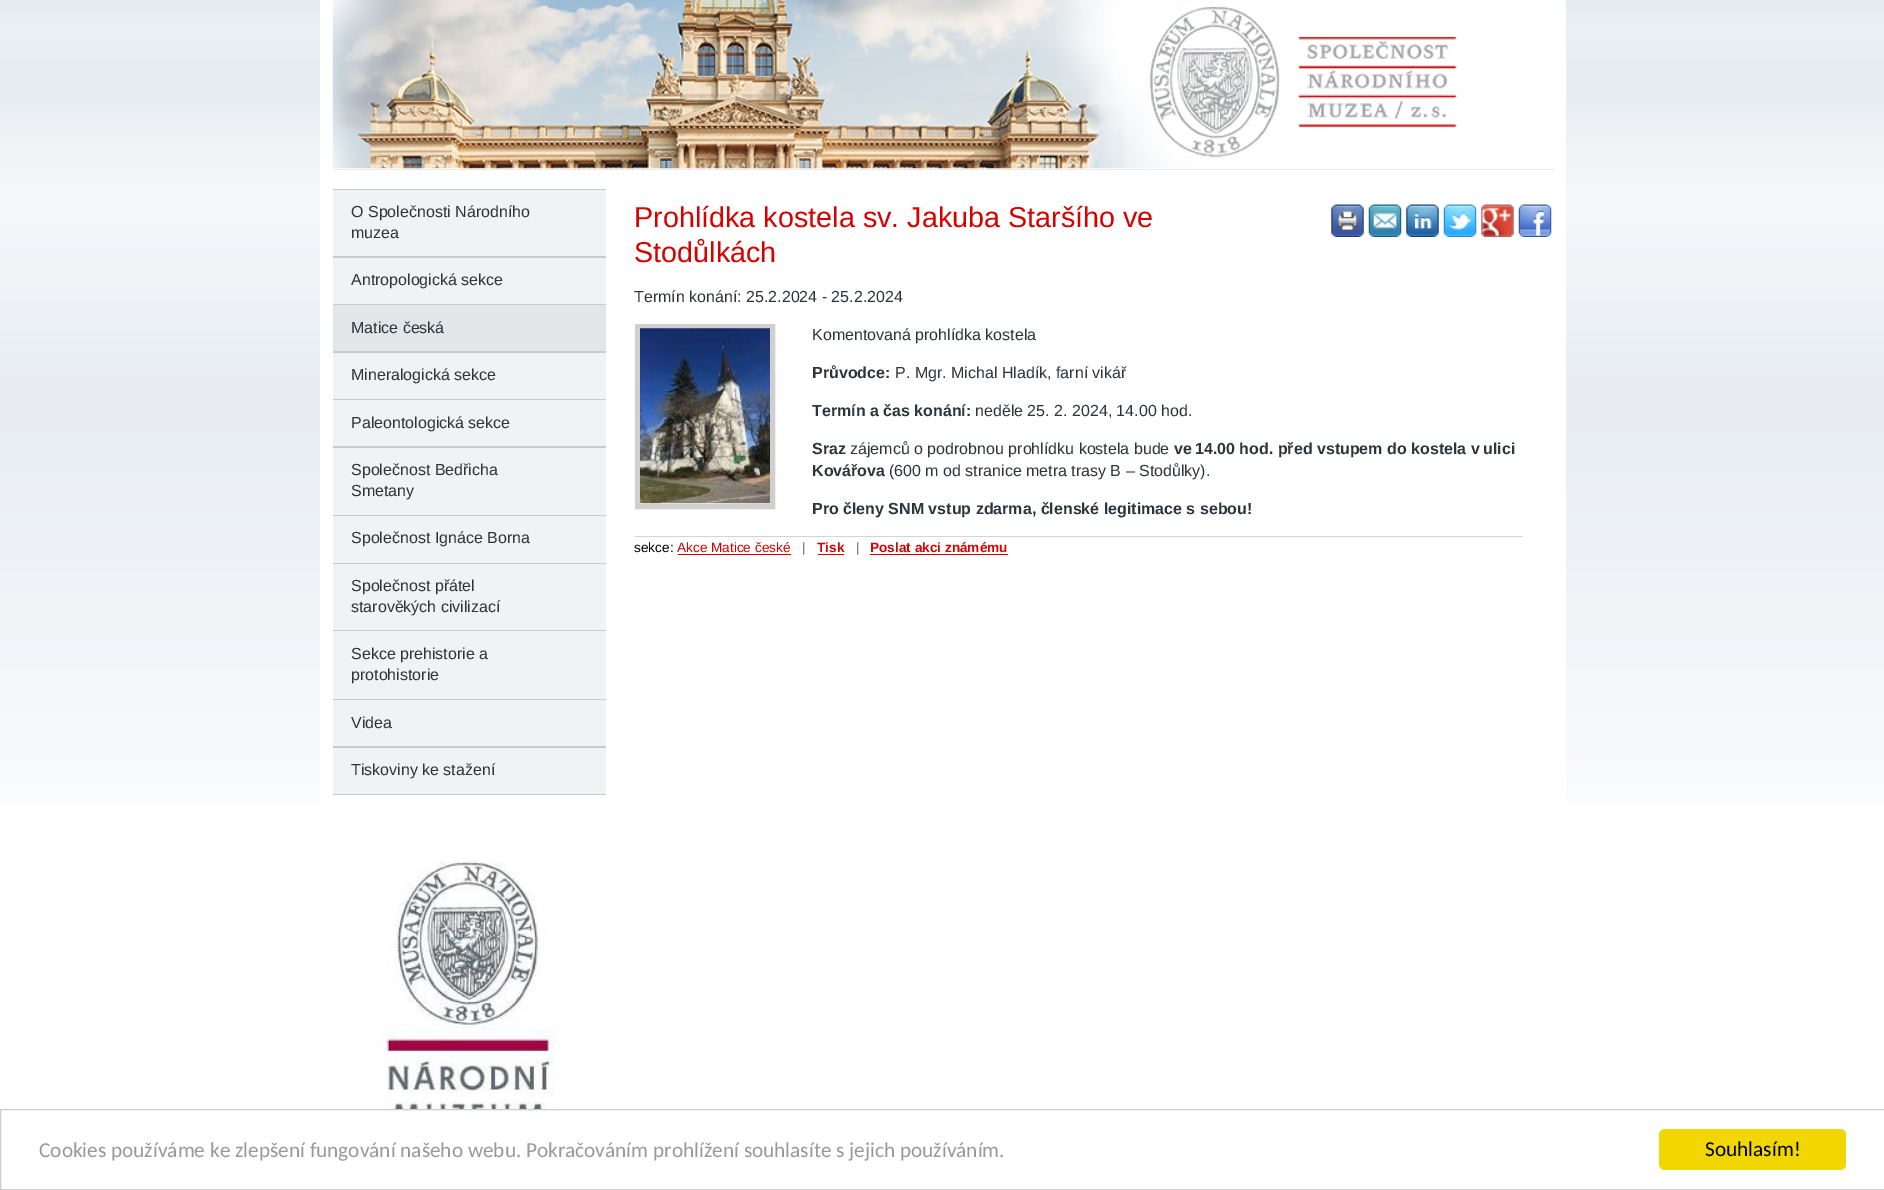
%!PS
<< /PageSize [1884 1190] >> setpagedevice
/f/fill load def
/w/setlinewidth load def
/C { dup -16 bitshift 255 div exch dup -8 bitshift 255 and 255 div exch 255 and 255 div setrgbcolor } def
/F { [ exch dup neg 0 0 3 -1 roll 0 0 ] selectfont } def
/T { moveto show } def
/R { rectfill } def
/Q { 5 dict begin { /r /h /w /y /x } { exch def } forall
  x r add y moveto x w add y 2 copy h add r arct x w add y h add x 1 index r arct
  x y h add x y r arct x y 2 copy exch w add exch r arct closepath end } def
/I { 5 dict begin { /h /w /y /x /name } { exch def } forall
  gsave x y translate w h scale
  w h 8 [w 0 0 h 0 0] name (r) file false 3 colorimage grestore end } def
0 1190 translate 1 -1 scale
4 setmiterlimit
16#FFFFFF C
0 0 1884 1190 R
(1.rgb) 0 0 1884 803 I
320 0 1246 803 R
16#EAEAEC C
333 169 1221 1 R
(2.rgb) 332 0 1125 169 I
16#C8CCCE C
333 189 273 1 R
333 256 273 2 R
16#F0F2F3 C
333 190 273 66 R
/LiberationSans-Regular 16 F
16#2C353C C
(O Společnosti Národního) 351 217 T
(muzea) 351 238 T
16#C8CCCE C
333 304 273 1 R
16#F0F2F3 C
333 258 273 46 R
16#2C353C C
(Antropologická sekce) 351 285 T
16#C8CCCE C
333 351 273 2 R
16#E3E6E9 C
333 305 273 46 R
16#2C353C C
(Matice česká) 351 333 T
16#C8CCCE C
333 399 273 1 R
16#F0F2F3 C
333 353 273 46 R
16#2C353C C
(Mineralogická sekce) 351 380 T
16#C8CCCE C
333 446 273 2 R
16#F0F2F3 C
333 400 273 46 R
16#2C353C C
(Paleontologická sekce) 351 428 T
16#C8CCCE C
333 515 273 1 R
16#F0F2F3 C
333 448 273 67 R
16#2C353C C
(Společnost Bedřicha) 351 475 T
(Smetany) 351 496 T
16#C8CCCE C
333 563 273 1 R
16#F0F2F3 C
333 516 273 47 R
16#2C353C C
(Společnost Ignáce Borna) 351 543 T
16#C8CCCE C
333 630 273 1 R
16#F0F2F3 C
333 564 273 66 R
16#2C353C C
(Společnost přátel) 351 591 T
(starověkých civilizací) 351 612 T
16#C8CCCE C
333 699 273 1 R
16#F0F2F3 C
333 631 273 68 R
16#2C353C C
(Sekce prehistorie a) 351 659 T
(protohistorie) 351 680 T
16#C8CCCE C
333 746 273 2 R
16#F0F2F3 C
333 700 273 46 R
16#2C353C C
(Videa) 351 728 T
16#C8CCCE C
333 794 273 1 R
16#F0F2F3 C
333 748 273 46 R
16#2C353C C
(Tiskoviny ke stažení) 351 775 T
(3.rgb) 380 860 176 249 I
/LiberationSans-Regular 28.75 F
16#D60101 C
(Prohlídka kostela sv. Jakuba Staršího ve) 634 227 T
(Stodůlkách) 634 262 T
(4.rgb) 1331 204 33 33 I
(5.rgb) 1368 204 34 33 I
(6.rgb) 1406 204 33 33 I
(7.rgb) 1443 204 34 33 I
(8.rgb) 1481 204 33 33 I
(9.rgb) 1518 204 34 33 I
/LiberationSans-Regular 16 F
16#2C353C C
(Termín konání: 25.2.2024 - 25.2.2024) 634 302 T
16#D0CECE C
5 w
637.5 326.5 135 180 rectstroke
(10.rgb) 640 328 130 176 I
16#2C353C C
(Komentovaná prohlídka kostela) 812 340 T
/LiberationSans-Bold 16 F
(Průvodce:) 812 378 T
/LiberationSans-Regular 16 F
(P. Mgr. Michal Hladík, farní vikář) 895 378 T
/LiberationSans-Bold 16 F
(Termín a čas konání:) 812 416 T
/LiberationSans-Regular 16 F
(neděle 25. 2. 2024, 14.00 hod.) 975 416 T
/LiberationSans-Bold 16 F
(Sraz) 812 454 T
/LiberationSans-Regular 16 F
(zájemců o podrobnou prohlídku kostela bude) 850 454 T
/LiberationSans-Bold 16 F
(ve) 1174 454 T
(14.00 hod. před vstupem do kostela v) 1195 454 T
(ulici) 1483 454 T
(Kovářova) 812 476 T
/LiberationSans-Regular 16 F
(\(600 m od stranice metra trasy B – Stodůlky\).) 889 476 T
/LiberationSans-Bold 16 F
(Pro členy SNM vstup zdarma, členské legitimace s sebou!) 812 514 T
16#D4D4D4 C
635 536 888 1 R
/LiberationSans-Regular 13.6 F
16#000000 C
(sekce:) 634 552 T
16#D60101 C
(Akce Matice české) 677 552 T
678 554 113 1 R
16#575757 C
(|) 802 552 T
/LiberationSans-Bold 13.6 F
16#D60101 C
(Tisk) 817 552 T
818 554 26 1 R
/LiberationSans-Regular 13.6 F
16#575757 C
(|) 856 552 T
/LiberationSans-Bold 13.6 F
16#D60101 C
(Poslat akci známému) 870 552 T
870 554 138 1 R
16#CCCCCC C
1 w
.5 1109.5 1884 80 rectstroke
/Carlito-Regular 21.25 F
16#999999 C
(Cookies používáme ke zlepšení fungování našeho webu. Pokračováním prohlížení souhlasíte s jejich používáním.) 39 1157 T
16#F1D600 C
1659 1129 187 41 6 Q f
16#000000 C
(Souhlasím!) 1705 1156 T
showpage
